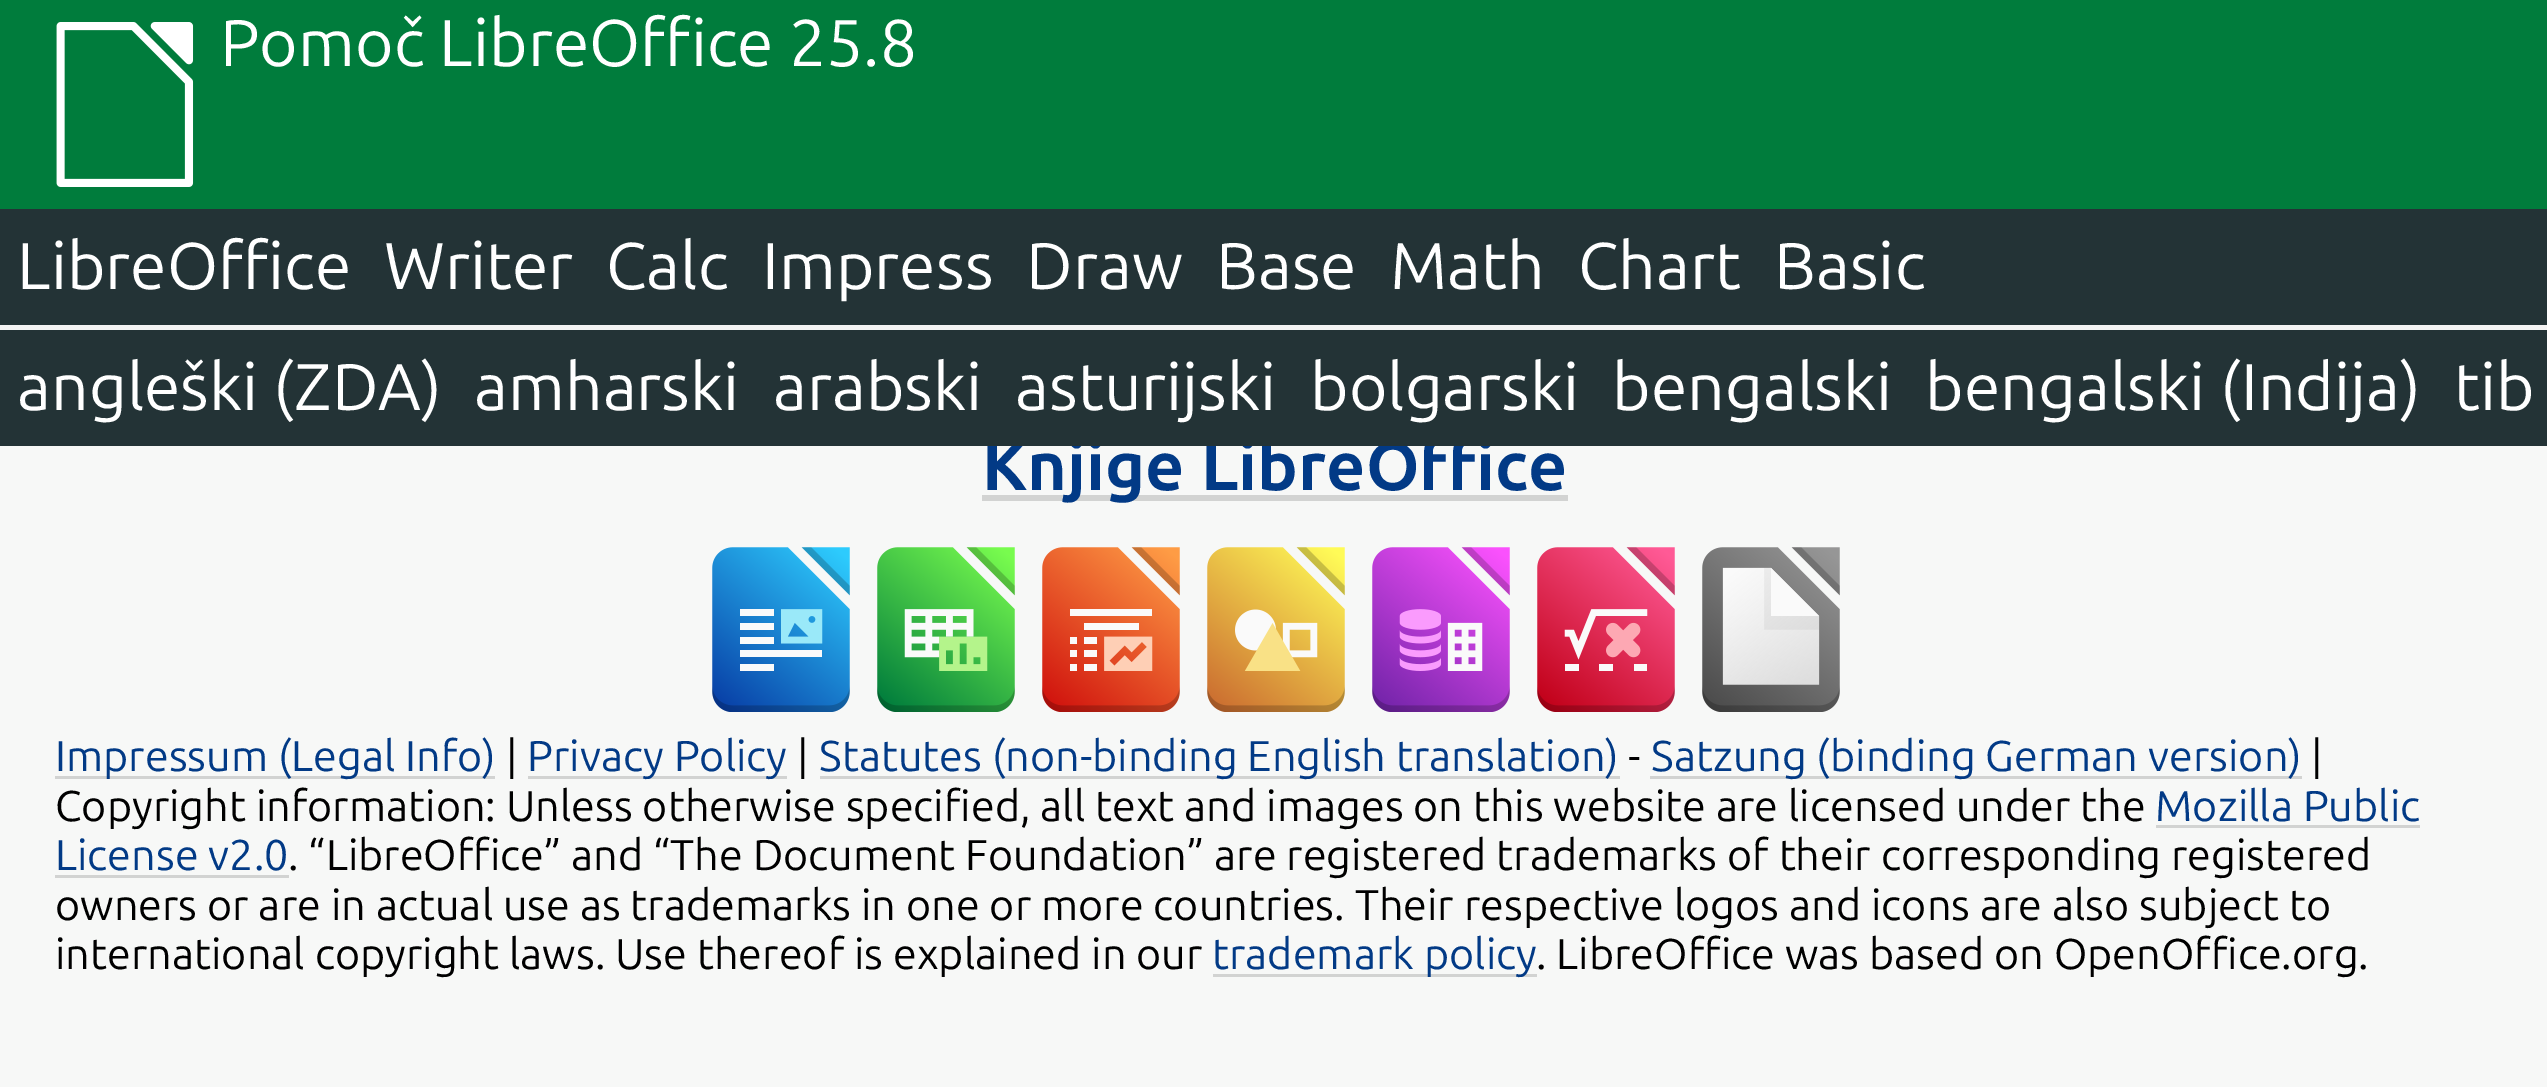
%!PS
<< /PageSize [2547 1087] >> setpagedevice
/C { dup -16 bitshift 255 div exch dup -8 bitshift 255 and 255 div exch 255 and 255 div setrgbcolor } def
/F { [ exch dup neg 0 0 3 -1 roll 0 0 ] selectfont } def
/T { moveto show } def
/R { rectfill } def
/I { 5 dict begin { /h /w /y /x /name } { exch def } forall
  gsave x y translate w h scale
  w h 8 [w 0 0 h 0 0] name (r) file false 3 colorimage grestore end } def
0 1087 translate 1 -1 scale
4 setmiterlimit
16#F7F8F7 C
0 0 2547 1087 R
16#007C3C C
0 0 2547 209 R
(1.rgb) 56 22 138 165 I
/Ubuntu-Regular 66 F
16#FFFFFF C
(Pomoč LibreOffice 25.8) 220 66 T
16#233336 C
0 209 2547 116 R
16#F3F3F3 C
0 325 2547 5 R
16#FFFFFF C
(LibreOffice) 17 289 T
(Writer) 384 289 T
(Calc) 606 289 T
(Impress) 762 289 T
(Draw) 1026 289 T
(Base) 1216 289 T
(Math) 1390 289 T
(Chart) 1578 289 T
(Basic) 1774 289 T
16#D2D3D2 C
982 495 586 6 R
/Ubuntu-Bold 68.25 F
16#023A86 C
(Knjige LibreOffice) 982 490 T
16#233336 C
0 330 2547 116 R
/Ubuntu-Regular 66 F
16#FFFFFF C
(angleški \(ZDA\)) 17 410 T
(amharski) 474 410 T
(arabski) 773 410 T
(asturijski) 1015 410 T
(bolgarski) 1310 410 T
(bengalski) 1612 410 T
(bengalski \(Indija\)) 1925 410 T
(tib) 2454 410 T
(2.rgb) 712 547 138 165 I
(3.rgb) 877 547 138 165 I
(4.rgb) 1042 547 138 165 I
(5.rgb) 1207 547 138 165 I
(6.rgb) 1372 547 138 165 I
(7.rgb) 1537 547 138 165 I
(8.rgb) 1702 547 138 165 I
16#D2D3D2 C
55 776 440 3 R
/Ubuntu-Regular 43.12 F
16#023A86 C
(Impressum \(Legal Info\)) 55 771 T
16#000000 C
(|) 506 771 T
16#D2D3D2 C
528 776 259 3 R
16#023A86 C
(Privacy Policy) 527 771 T
16#000000 C
(|) 797 771 T
16#D2D3D2 C
820 776 800 3 R
16#023A86 C
(Statutes \(non-binding English translation\)) 819 771 T
16#000000 C
(-) 1628 771 T
16#D2D3D2 C
1650 776 652 3 R
16#023A86 C
(Satzung \(binding German version\)) 1651 771 T
16#000000 C
(|) 2311 771 T
(Copyright information: Unless otherwise specified, all text and images on this website are licensed under the) 55 821 T
16#023A86 C
(Mozilla Public) 2155 821 T
16#D2D3D2 C
2156 825 264 3 R
16#023A86 C
(License v2.0) 55 870 T
16#D2D3D2 C
55 875 234 3 R
16#000000 C
(. “LibreOffice” and “The Document Foundation” are registered trademarks of their corresponding registered) 288 870 T
(owners or are in actual use as trademarks in one or more countries. Their respective logos and icons are also subject to) 55 920 T
(international copyright laws. Use thereof is explained in our) 55 969 T
16#D2D3D2 C
1213 974 324 3 R
16#023A86 C
(trademark policy) 1212 969 T
16#000000 C
(. LibreOffice was based on OpenOffice.org.) 1536 969 T
showpage
